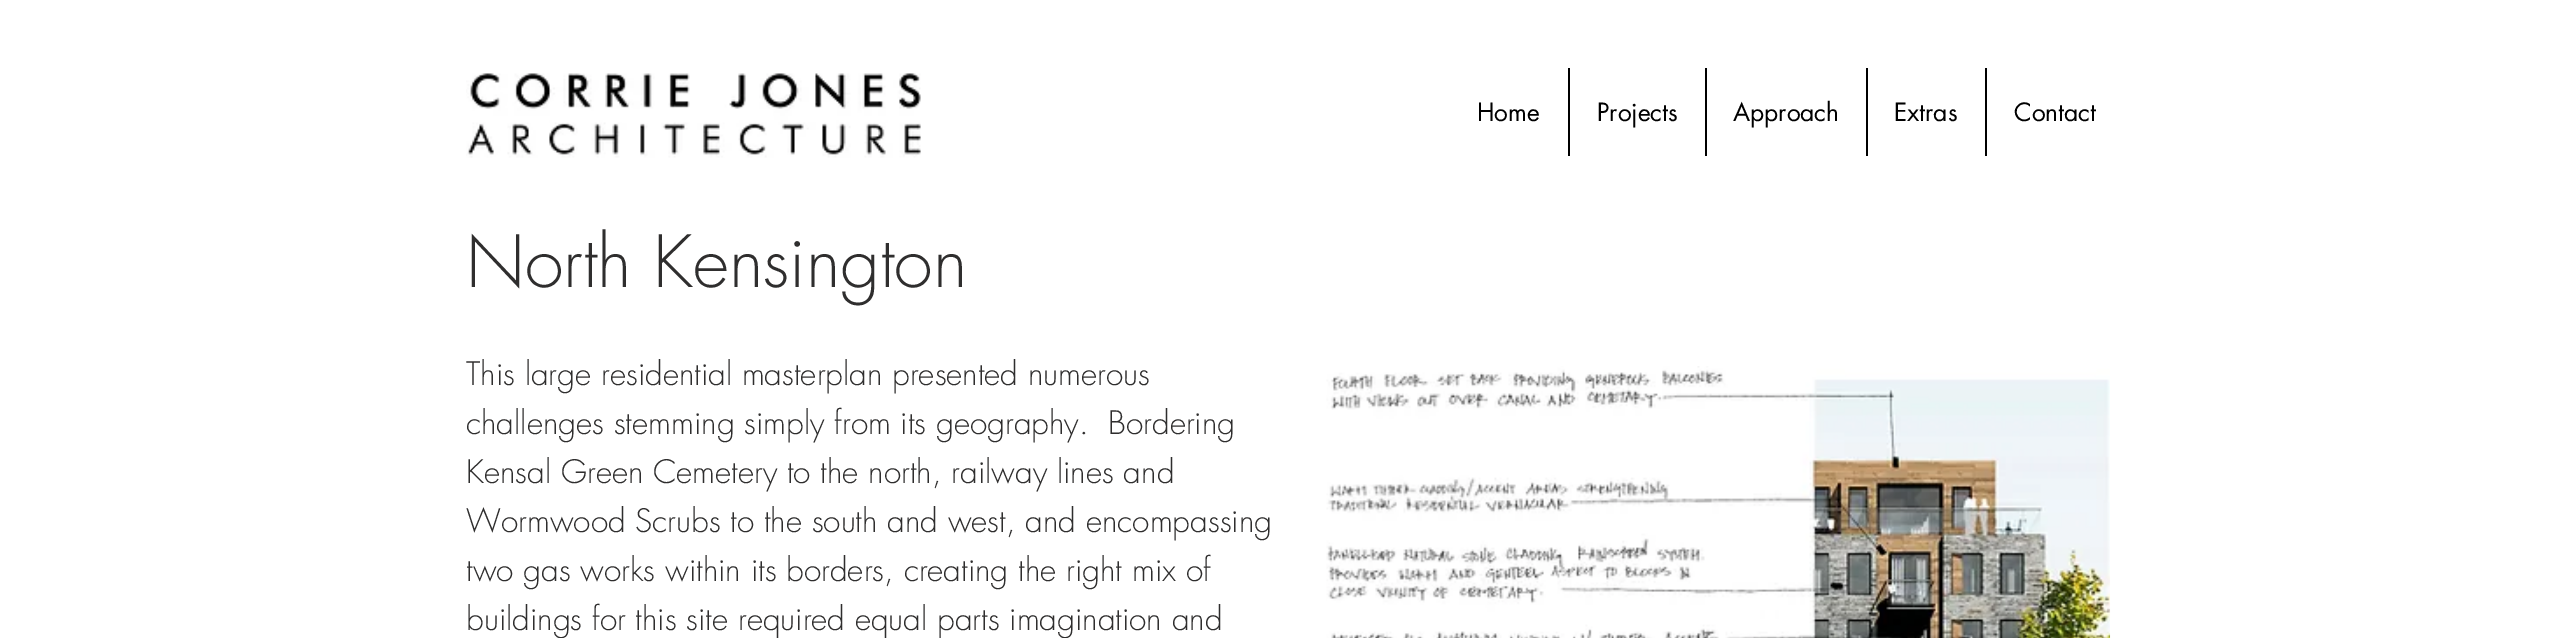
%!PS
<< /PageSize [2576 638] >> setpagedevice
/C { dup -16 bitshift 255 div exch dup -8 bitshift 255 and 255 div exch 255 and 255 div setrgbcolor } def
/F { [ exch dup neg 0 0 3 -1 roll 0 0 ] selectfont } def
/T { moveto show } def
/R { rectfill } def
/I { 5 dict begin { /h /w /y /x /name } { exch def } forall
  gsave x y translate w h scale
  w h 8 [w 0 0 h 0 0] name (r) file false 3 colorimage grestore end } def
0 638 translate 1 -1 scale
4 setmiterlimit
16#FFFFFF C
0 0 2576 638 R
(1.rgb) 466 73 455 85 I
/futura-Regular 24.5 F
16#000000 C
(Home) 1477 121 T
1568 68 2 88 R
(Projects) 1597 121 T
1705 68 2 88 R
(Approach) 1733 121 T
1866 68 2 88 R
(Extras) 1894 121 T
1985 68 2 88 R
(Contact) 2014 121 T
/futura-Light 70 F
16#2F2E2E C
(North Kensington) 466 287 T
/futura-Light 31.5 F
(This large residential masterplan presented numerous) 466 385 T
(challenges stemming simply from its geography.  Bordering) 466 434 T
(Kensal Green Cemetery to the north, railway lines and) 466 483 T
(Wormwood Scrubs to the south and west, and encompassing) 466 532 T
(two gas works within its borders, creating the right mix of) 466 581 T
(buildings for this site required equal parts imagination and) 466 630 T
(2.rgb) 1326 366 785 272 I
showpage
